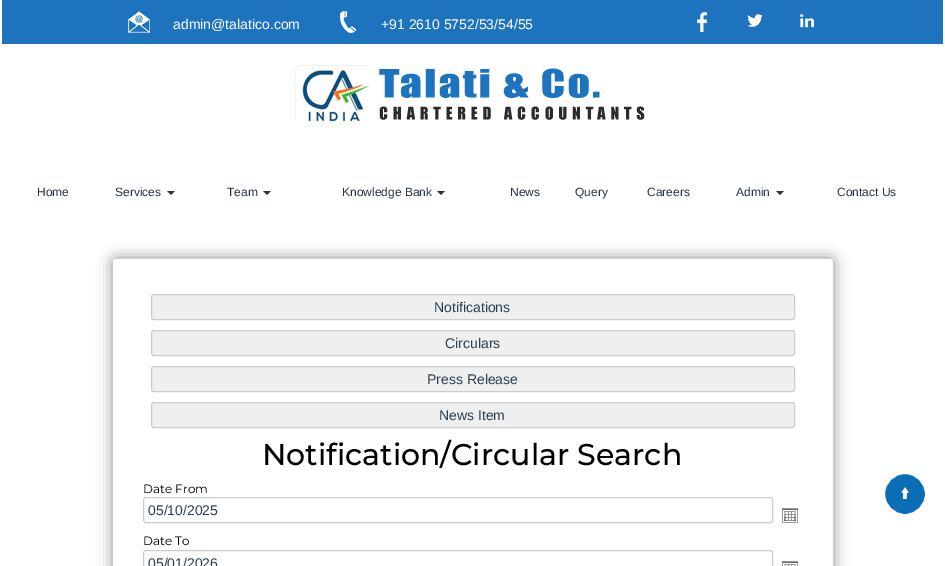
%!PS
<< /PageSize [945 566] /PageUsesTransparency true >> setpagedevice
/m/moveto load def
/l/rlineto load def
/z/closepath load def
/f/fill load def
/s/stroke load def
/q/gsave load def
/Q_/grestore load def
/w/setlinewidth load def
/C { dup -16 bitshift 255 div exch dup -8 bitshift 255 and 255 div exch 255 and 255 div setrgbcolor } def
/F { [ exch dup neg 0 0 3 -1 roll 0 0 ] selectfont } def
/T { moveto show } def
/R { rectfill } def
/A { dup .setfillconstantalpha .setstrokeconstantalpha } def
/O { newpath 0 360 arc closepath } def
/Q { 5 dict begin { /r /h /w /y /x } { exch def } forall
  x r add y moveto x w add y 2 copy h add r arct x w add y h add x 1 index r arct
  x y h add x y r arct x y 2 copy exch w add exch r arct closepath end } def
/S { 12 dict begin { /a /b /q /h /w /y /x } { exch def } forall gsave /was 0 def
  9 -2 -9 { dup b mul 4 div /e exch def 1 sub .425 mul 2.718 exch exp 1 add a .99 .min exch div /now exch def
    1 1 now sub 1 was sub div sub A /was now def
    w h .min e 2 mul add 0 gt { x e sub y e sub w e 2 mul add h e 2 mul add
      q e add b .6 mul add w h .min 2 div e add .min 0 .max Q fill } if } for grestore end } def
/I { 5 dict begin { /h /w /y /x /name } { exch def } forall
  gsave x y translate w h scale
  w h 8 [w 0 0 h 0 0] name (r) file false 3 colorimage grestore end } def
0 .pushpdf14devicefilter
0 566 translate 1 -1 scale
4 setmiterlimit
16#FFFFFF C
0 0 945 566 R
16#1E73BE C
2 0 941 44 R
(1.rgb) 128 11 22 22 I
/LiberationSans-Regular 14 F
16#FFFFFF C
(admin@talatico.com) 173 29 T
(2.rgb) 340 11 16 22 I
(+91 2610 5752/53/54/55) 381 29 T
(3.rgb) 697 12 10 20 I
(4.rgb) 747 14 16 13 I
(5.rgb) 800 14 14 14 I
(6.rgb) 295 65 350 58 I
/LiberationSans-Regular 12 F
16#263240 C
(Home) 37 196 T
(Services) 115 196 T
167 191 m 8 0 l -4 4 l z f
(Team) 227 196 T
263 191 m 8 0 l -4 4 l z f
(Knowledge Bank) 342 196 T
437 191 m 8 0 l -4 4 l z f
(News) 510 196 T
(Query) 575 196 T
(Careers) 647 196 T
(Admin) 736 196 T
776 191 m 8 0 l -4 4 l z f
(Contact Us) 837 196 T
16#000000 C
112 258 722 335 4 7.5 .4 S
16#FFFFFF C
113 259 720 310 3 Q f
16#EFEFEF C
151.5 294.5 643 25 2.5 Q q f Q_
16#CCCCCC C
s
/LiberationSans-Regular 14 F
16#2C3E50 C
(Notifications) 434 312 T
16#EFEFEF C
151.5 330.5 643 25 2.5 Q q f Q_
16#CCCCCC C
s
16#2C3E50 C
(Circulars) 445 348 T
16#EFEFEF C
151.5 366.5 643 25 2.5 Q q f Q_
16#CCCCCC C
s
16#2C3E50 C
(Press Release) 427 384 T
16#EFEFEF C
151.5 402.5 643 25 2.5 Q q f Q_
16#CCCCCC C
s
16#2C3E50 C
(News Item) 439 420 T
/Montserrat-Medium 30 F
16#000000 C
(Notification/Circular Search) 262 465 T
/Montserrat-Regular 12 F
(Date From) 143 493 T
16#CCCCCC C
143.5 497.5 629 25 2.5 Q s
/LiberationSans-Regular 14 F
16#2C3E50 C
(05/10/2025) 148 515 T
(7.rgb) 782 508 16 15 I
/Montserrat-Regular 12 F
16#000000 C
(Date To) 143 545 T
16#CCCCCC C
143.5 550.5 629 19 2.5 Q s
/LiberationSans-Regular 14 F
16#2C3E50 C
(05/01/2026) 148 568 T
(8.rgb) 782 561 16 5 I
16#096EB6 C
905 494 21 O q f Q_
16#FFFFFF C
2 w
s
(9.rgb) 901 487 8 12 I
.poppdf14devicefilter showpage
